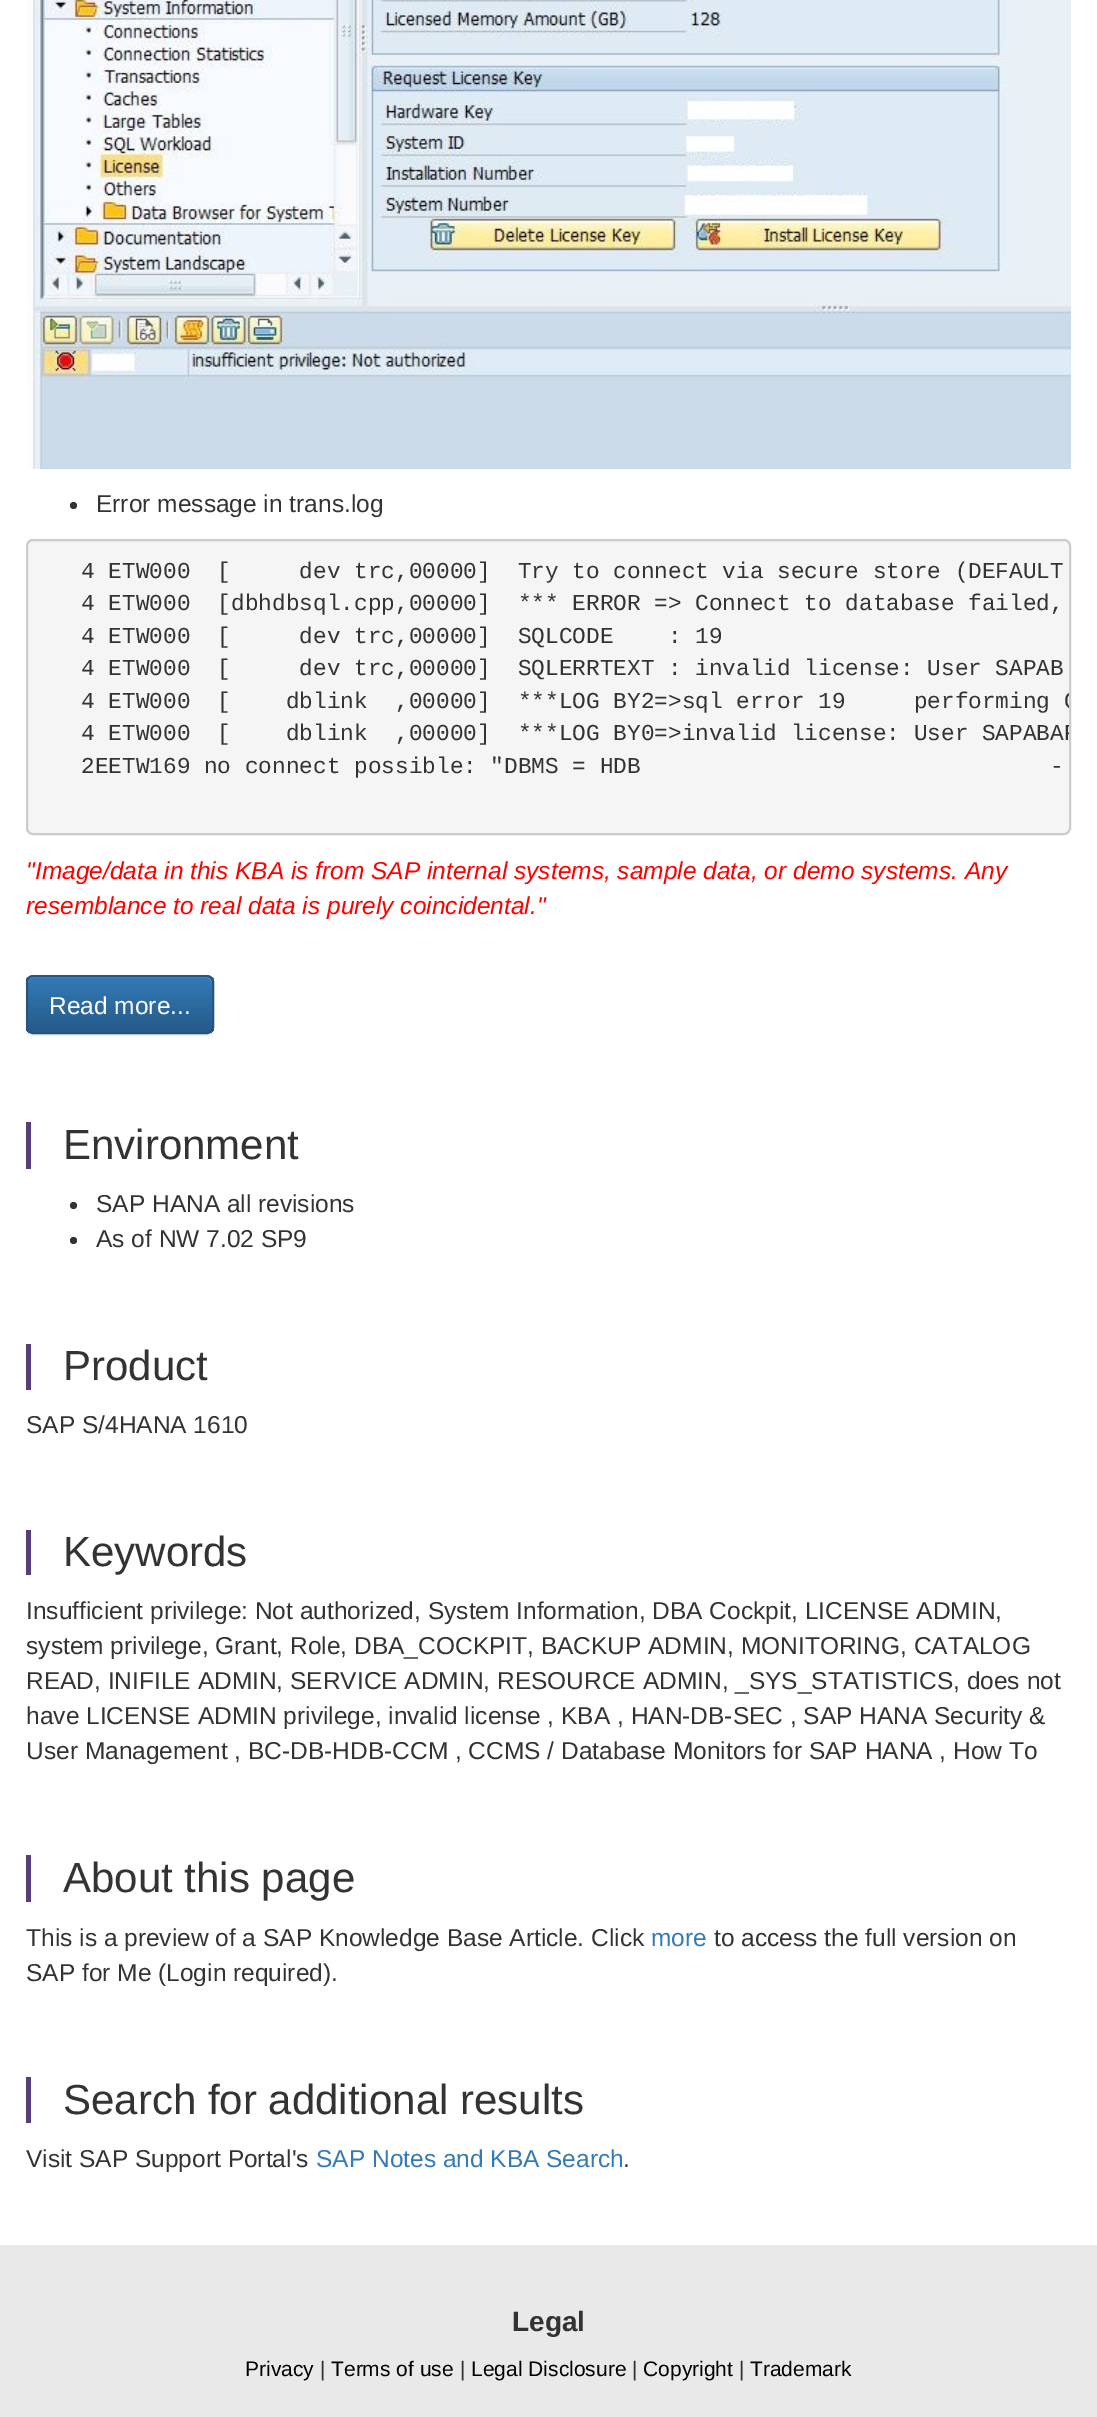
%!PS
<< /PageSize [1097 2417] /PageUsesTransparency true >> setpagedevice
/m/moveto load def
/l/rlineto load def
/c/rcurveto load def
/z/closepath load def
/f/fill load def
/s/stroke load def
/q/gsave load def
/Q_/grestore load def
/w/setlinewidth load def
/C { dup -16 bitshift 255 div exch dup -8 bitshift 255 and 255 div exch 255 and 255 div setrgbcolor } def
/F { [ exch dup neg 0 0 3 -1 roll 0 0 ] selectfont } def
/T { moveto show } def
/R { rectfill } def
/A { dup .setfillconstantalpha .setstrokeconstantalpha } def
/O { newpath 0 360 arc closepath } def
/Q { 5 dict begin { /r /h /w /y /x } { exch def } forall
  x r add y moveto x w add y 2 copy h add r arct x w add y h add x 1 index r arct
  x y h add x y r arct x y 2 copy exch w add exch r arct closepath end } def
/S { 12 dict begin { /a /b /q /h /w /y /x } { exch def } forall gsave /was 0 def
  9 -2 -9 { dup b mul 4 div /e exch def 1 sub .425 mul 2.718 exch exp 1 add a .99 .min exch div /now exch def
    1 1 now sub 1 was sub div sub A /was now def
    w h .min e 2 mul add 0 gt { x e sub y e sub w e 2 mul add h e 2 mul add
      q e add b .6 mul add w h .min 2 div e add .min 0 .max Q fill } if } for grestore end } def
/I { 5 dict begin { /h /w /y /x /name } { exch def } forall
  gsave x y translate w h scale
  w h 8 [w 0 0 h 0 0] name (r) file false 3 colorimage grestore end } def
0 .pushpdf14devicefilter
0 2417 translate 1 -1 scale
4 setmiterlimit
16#FFFFFF C
0 0 1097 2417 R
(1.rgb) 26 0 1045 469 I
16#333333 C
73.5 505.5 3.5 O f
/LiberationSans-Regular 24.5 F
(Error message in trans.log) 96 512 T
16#F5F5F5 C
27 540 1043 294 6 Q q f Q_
16#CCCCCC C
2 w
s
/LiberationMono-Regular 22.75 F
16#333333 C
(4 ETW000  [     dev trc,00000]  Try to connect via secure store \(DEFAULT) 81 578 T
(4 ETW000  [dbhdbsql.cpp,00000]  *** ERROR => Connect to database failed,) 81 610 T
(4 ETW000  [     dev trc,00000]  SQLCODE    : 19) 81 643 T
(4 ETW000  [     dev trc,00000]  SQLERRTEXT : invalid license: User SAPAB) 81 675 T
q
28 541 1041 292 5 Q clip newpath
(4 ETW000  [    dblink  ,00000]  ***LOG BY2=>sql error 19     performing C) 81 708 T
(4 ETW000  [    dblink  ,00000]  ***LOG BY0=>invalid license: User SAPABAP) 81 740 T
Q_
(2EETW169 no connect possible: "DBMS = HDB                              -) 81 773 T
/LiberationSans-Italic 24.5 F
16#FF0000 C
("Image/data in this KBA is from SAP internal systems, sample data, or demo systems. Any) 26 879 T
(resemblance to real data is purely coincidental.") 26 914 T
16#000000 C
26 977 188 59 7 1 .07 S
q
26 975 188 59 7 Q clip newpath
q 26 977 m 188 0 l 0 56 l -188 0 l z clip newpath
<< /ShadingType 2 /ColorSpace /DeviceRGB /Coords [120 977 120 1033] /Extend [true true] /Function << /FunctionType 2 /Domain [0 1] /C0 [.2 .478 .718] /C1 [.149 .353 .533] /N 1 >> >> shfill Q_
Q_
0.15 A
16#FFFFFF C
33 978 m 173 0 l 3 0 6 3 6 6 c 0 -2 l 0 -3 -2 -5 -5 -5 c -174 0 l -3 0 -5 2 -5 5 c 0 2 l 0 -3 2 -6 5 -6 c z f
1 A
16#245580 C
27 976 186 57 6 Q s
/LiberationSans-Regular 24.5 F
16#FFFFFF C
(Read more...) 49 1014 T
16#563D7C C
26 1122 5 47 R
/LiberationSans-Regular 42 F
16#333333 C
(Environment) 63 1159 T
73.5 1205.5 3.5 O f
/LiberationSans-Regular 24.5 F
(SAP HANA all revisions) 96 1212 T
73.5 1240.5 3.5 O f
(As of NW 7.02 SP9) 96 1247 T
16#563D7C C
26 1344 5 46 R
/LiberationSans-Regular 42 F
16#333333 C
(Product) 63 1380 T
/LiberationSans-Regular 24.5 F
(SAP S/4HANA 1610) 26 1433 T
16#563D7C C
26 1530 5 45 R
/LiberationSans-Regular 42 F
16#333333 C
(Keywords) 63 1566 T
/LiberationSans-Regular 24.5 F
(Insufficient privilege: Not authorized, System Information, DBA Cockpit, LICENSE ADMIN,) 26 1619 T
(system privilege, Grant, Role, DBA_COCKPIT, BACKUP ADMIN, MONITORING, CATALOG) 26 1654 T
(READ, INIFILE ADMIN, SERVICE ADMIN, RESOURCE ADMIN, _SYS_STATISTICS, does not) 26 1689 T
(have LICENSE ADMIN privilege, invalid license , KBA , HAN-DB-SEC , SAP HANA Security &) 26 1724 T
(User Management , BC-DB-HDB-CCM , CCMS / Database Monitors for SAP HANA , How To) 26 1759 T
16#563D7C C
26 1855 5 47 R
/LiberationSans-Regular 42 F
16#333333 C
(About this page) 63 1892 T
/LiberationSans-Regular 24.5 F
(This is a preview of a SAP Knowledge Base Article. Click) 26 1946 T
16#337AB7 C
(more) 651 1946 T
16#333333 C
(to access the full version on) 714 1946 T
(SAP for Me \(Login required\).) 26 1981 T
16#563D7C C
26 2077 5 46 R
/LiberationSans-Regular 42 F
16#333333 C
(Search for additional results) 63 2114 T
/LiberationSans-Regular 24.5 F
(Visit SAP Support Portal's) 26 2167 T
16#337AB7 C
(SAP Notes and KBA Search) 316 2167 T
16#333333 C
(.) 623 2167 T
16#E9E9E9 C
0 2245 1097 172 R
/LiberationSans-Bold 28 F
16#333333 C
(Legal) 512 2331 T
/LiberationSans-Regular 21 F
16#000000 C
(Privacy) 245 2376 T
16#333333 C
(|) 320 2376 T
16#000000 C
(Terms of use) 331 2376 T
16#333333 C
(|) 460 2376 T
16#000000 C
(Legal Disclosure) 471 2376 T
16#333333 C
(|) 632 2376 T
16#000000 C
(Copyright) 643 2376 T
16#333333 C
(|) 739 2376 T
16#000000 C
(Trademark) 750 2376 T
.poppdf14devicefilter showpage
